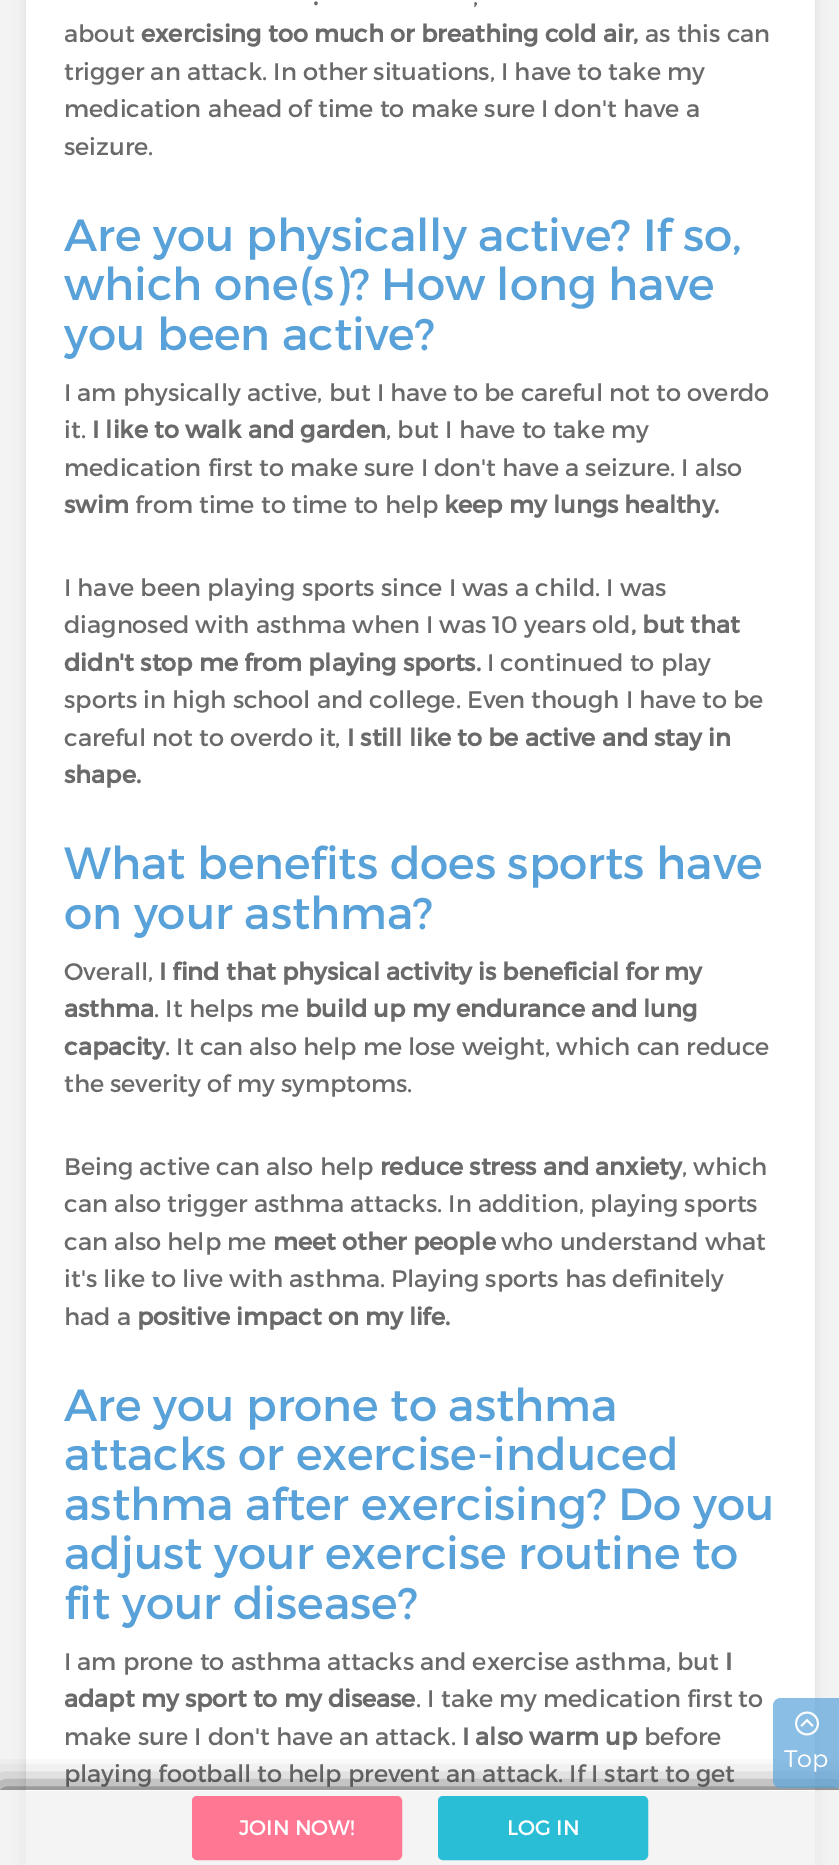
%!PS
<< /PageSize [839 1865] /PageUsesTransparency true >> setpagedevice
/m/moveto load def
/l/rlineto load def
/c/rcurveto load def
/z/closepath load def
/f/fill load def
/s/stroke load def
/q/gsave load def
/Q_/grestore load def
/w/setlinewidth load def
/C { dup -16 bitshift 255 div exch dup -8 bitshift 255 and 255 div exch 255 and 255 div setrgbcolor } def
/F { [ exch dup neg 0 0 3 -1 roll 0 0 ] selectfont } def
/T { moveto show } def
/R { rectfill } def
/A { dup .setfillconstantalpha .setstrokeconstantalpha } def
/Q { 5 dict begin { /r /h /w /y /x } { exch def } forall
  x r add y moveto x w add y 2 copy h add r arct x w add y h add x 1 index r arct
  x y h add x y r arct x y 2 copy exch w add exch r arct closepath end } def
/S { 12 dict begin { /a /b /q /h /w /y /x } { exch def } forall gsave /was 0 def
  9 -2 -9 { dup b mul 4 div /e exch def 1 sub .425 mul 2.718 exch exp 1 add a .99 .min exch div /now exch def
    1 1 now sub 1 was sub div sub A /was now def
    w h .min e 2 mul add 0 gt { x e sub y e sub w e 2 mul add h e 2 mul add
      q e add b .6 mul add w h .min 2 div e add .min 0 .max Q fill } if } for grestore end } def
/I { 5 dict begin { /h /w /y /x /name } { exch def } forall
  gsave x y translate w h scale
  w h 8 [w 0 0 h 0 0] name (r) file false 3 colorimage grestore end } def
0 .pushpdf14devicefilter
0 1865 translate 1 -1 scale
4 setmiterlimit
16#F3F3F3 C
0 0 839 1865 R
16#000000 C
26 -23 789 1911 5 6 .09 S
16#FFFFFF C
26 0 789 1865 R
/Montserrat-Bold 24 F
16#6A6A6A C
(.) 313 5 T
/Montserrat-Regular 24 F
(,) 473 5 T
(about) 64 42 T
/Montserrat-Bold 24 F
(exercising too much or breathing cold air,) 141 42 T
/Montserrat-Regular 24 F
(as this can) 645 42 T
(trigger an attack. In other situations, I have to take my) 64 80 T
(medication ahead of time to make sure I don't have a) 64 117 T
(seizure.) 64 155 T
/Montserrat-Regular 45 F
16#59A2D9 C
(Are you physically active? If so,) 64 251 T
(which one\(s\)? How long have) 64 300 T
(you been active?) 64 350 T
/Montserrat-Regular 24 F
16#6A6A6A C
(I am physically active, but I have to be careful not to overdo) 64 401 T
(it.) 64 438 T
/Montserrat-Bold 24 F
(I like to walk and garden) 92 438 T
/Montserrat-Regular 24 F
(, but I have to take my) 386 438 T
(medication first to make sure I don't have a seizure. I also) 64 476 T
/Montserrat-Bold 24 F
(swim) 64 513 T
/Montserrat-Regular 24 F
(from time to time to help) 135 513 T
/Montserrat-Bold 24 F
(keep my lungs healthy.) 444 513 T
/Montserrat-Regular 24 F
(I have been playing sports since I was a child. I was) 64 596 T
(diagnosed with asthma when I was 10 years old) 64 633 T
/Montserrat-Bold 24 F
(, but that) 631 633 T
(didn't stop me from playing sports.) 64 671 T
/Montserrat-Regular 24 F
(I continued to play) 487 671 T
(sports in high school and college. Even though I have to be) 64 708 T
(careful not to overdo it,) 64 746 T
/Montserrat-Bold 24 F
(I still like to be active and stay in) 347 746 T
(shape.) 64 783 T
/Montserrat-Regular 45 F
16#59A2D9 C
(What benefits does sports have) 64 879 T
(on your asthma?) 64 929 T
/Montserrat-Regular 24 F
16#6A6A6A C
(Overall,) 64 980 T
/Montserrat-Bold 24 F
(I find that physical activity is beneficial for my) 159 980 T
(asthma) 64 1017 T
/Montserrat-Regular 24 F
(. It helps me) 154 1017 T
/Montserrat-Bold 24 F
(build up my endurance and lung) 305 1017 T
(capacity) 64 1055 T
/Montserrat-Regular 24 F
(. It can also help me lose weight, which can reduce) 165 1055 T
(the severity of my symptoms.) 64 1092 T
(Being active can also help) 64 1175 T
/Montserrat-Bold 24 F
(reduce stress and anxiety) 380 1175 T
/Montserrat-Regular 24 F
(, which) 682 1175 T
(can also trigger asthma attacks. In addition, playing sports) 64 1212 T
(can also help me) 64 1250 T
/Montserrat-Bold 24 F
(meet other people) 273 1250 T
/Montserrat-Regular 24 F
(who understand what) 501 1250 T
(it's like to live with asthma. Playing sports has definitely) 64 1287 T
(had a) 64 1325 T
/Montserrat-Bold 24 F
(positive impact on my life.) 137 1325 T
/Montserrat-Regular 45 F
16#59A2D9 C
(Are you prone to asthma) 64 1421 T
(attacks or exercise-induced) 64 1470 T
(asthma after exercising? Do you) 64 1520 T
(adjust your exercise routine to) 64 1569 T
(fit your disease?) 64 1619 T
/Montserrat-Regular 24 F
16#6A6A6A C
(I am prone to asthma attacks and exercise asthma, but) 64 1670 T
/Montserrat-Bold 24 F
(I) 725 1670 T
(adapt my sport to my disease) 64 1707 T
/Montserrat-Regular 24 F
(. I take my medication first to) 416 1707 T
(make sure I don't have an attack.) 64 1745 T
/Montserrat-Bold 24 F
(I also warm up) 462 1745 T
/Montserrat-Regular 24 F
(before) 644 1745 T
(playing football to help prevent an attack. If I start to get) 64 1782 T
q
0 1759 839 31 rectclip
16#333333 C
0 1790 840 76 0 15 1 S
Q_
0.7 A
16#58A2D9 C
781 1698 m 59 0 l 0 90 l -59 0 l -4.5 0 -8 -3.5 -8 -8 c 0 -74 l 0 -4.5 3.5 -8 8 -8 c z f
1 A
(1.rgb) 795 1711 24 25 I
/Montserrat-Light 24 F
16#FFFFFF C
(Top) 784 1767 T
0.7 A
16#F0F0F0 C
23 1791 795 74 R
1 A
16#FF7793 C
193 1797 208 62 4 Q q f Q_
2 w
s
/Montserrat-Regular 21 F
16#FFFFFF C
(JOIN NOW!) 239 1835 T
16#29BED6 C
439 1797 208 62 4 Q q f Q_
s
16#FFFFFF C
(LOG IN) 507 1835 T
.poppdf14devicefilter showpage
